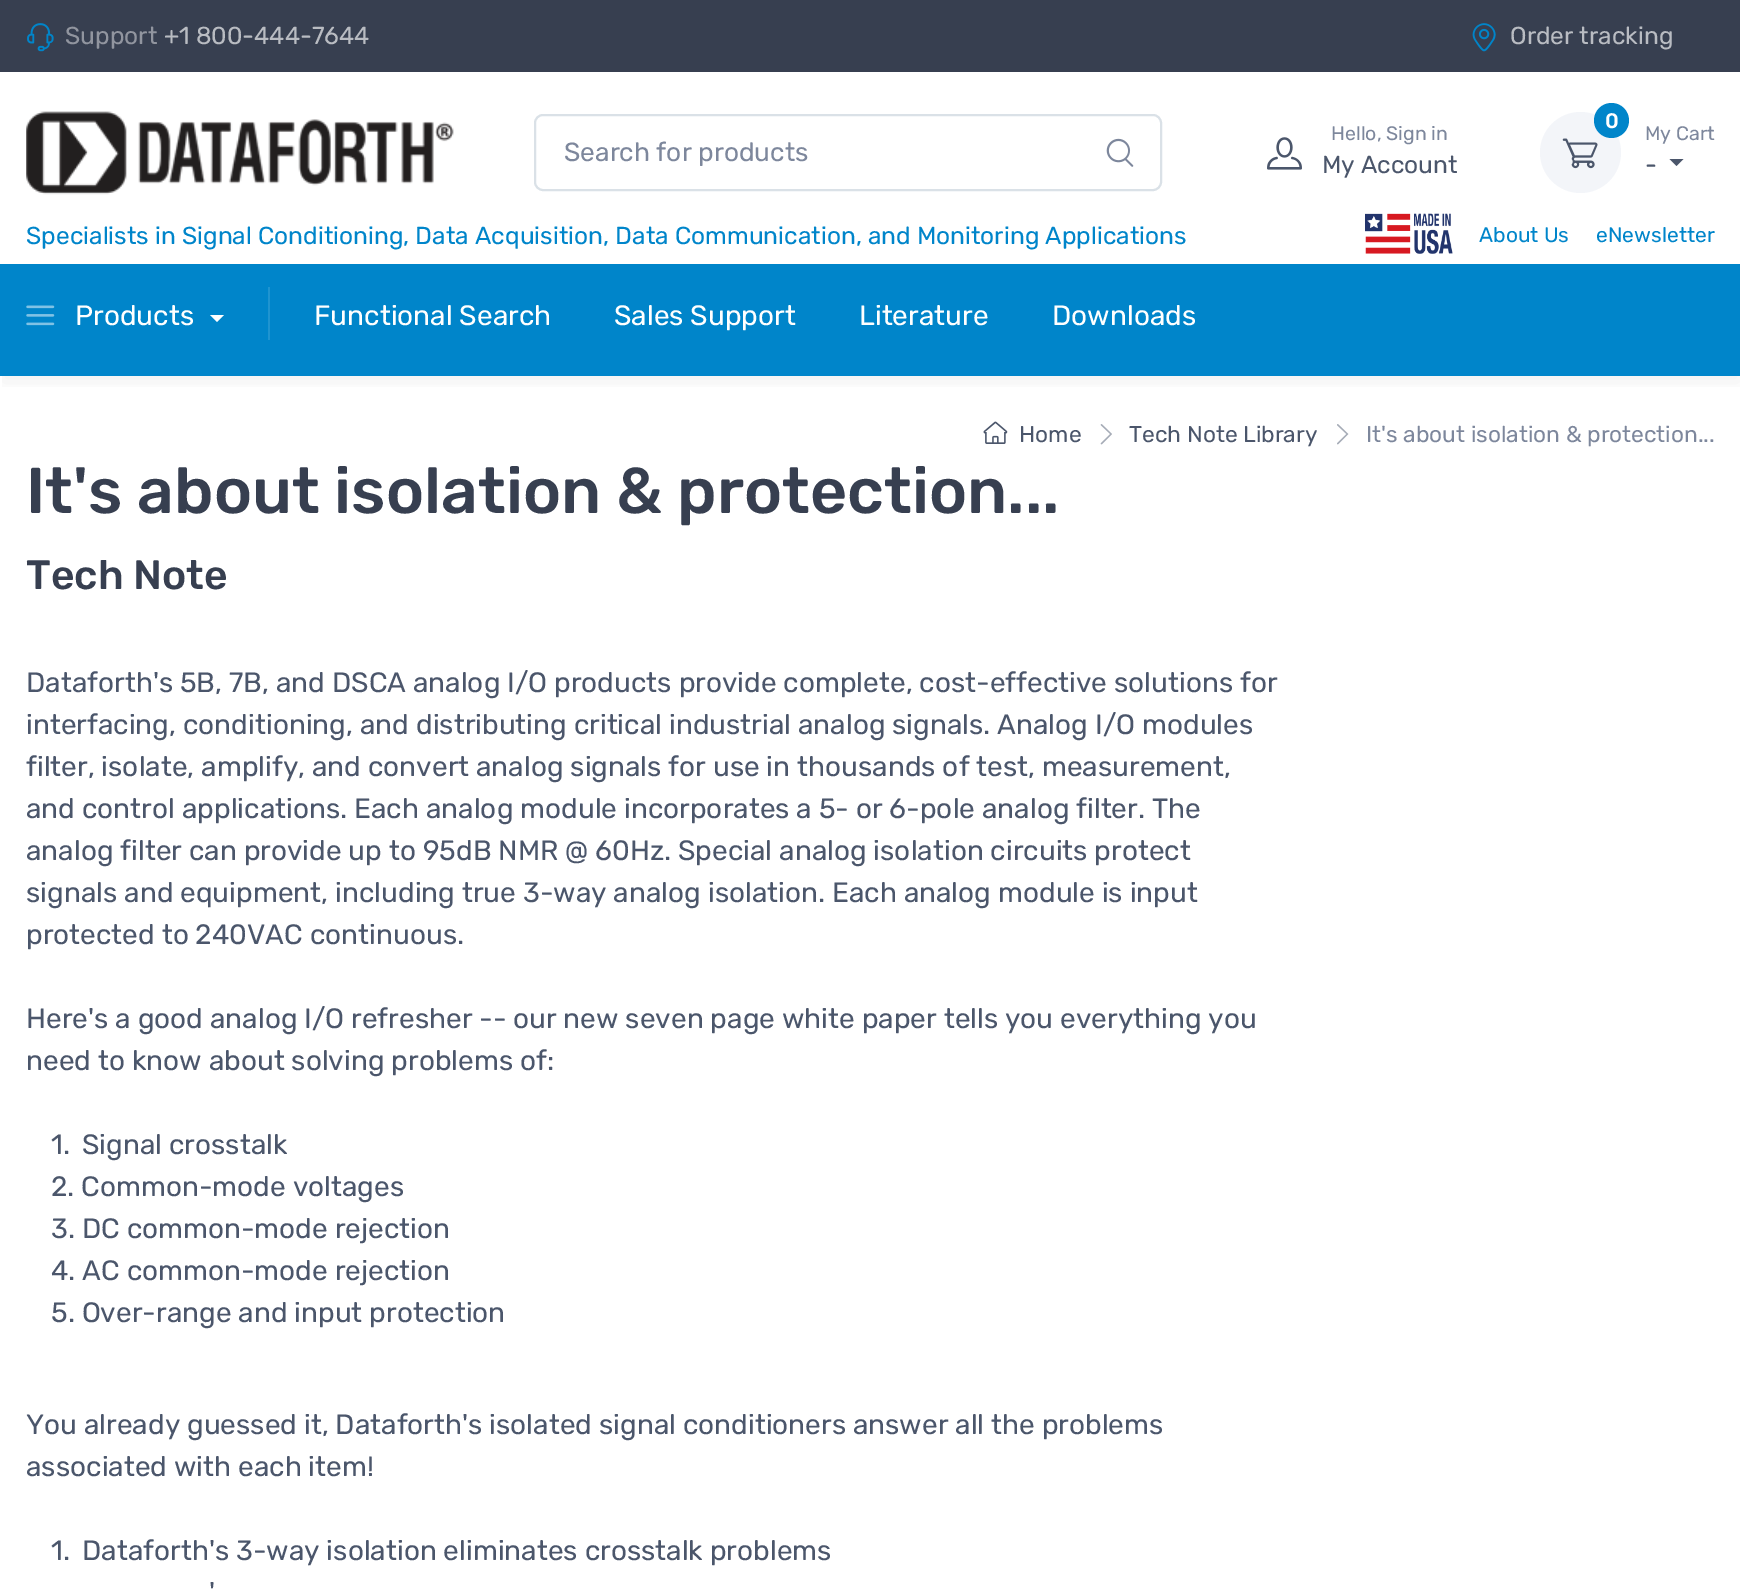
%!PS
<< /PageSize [1740 1590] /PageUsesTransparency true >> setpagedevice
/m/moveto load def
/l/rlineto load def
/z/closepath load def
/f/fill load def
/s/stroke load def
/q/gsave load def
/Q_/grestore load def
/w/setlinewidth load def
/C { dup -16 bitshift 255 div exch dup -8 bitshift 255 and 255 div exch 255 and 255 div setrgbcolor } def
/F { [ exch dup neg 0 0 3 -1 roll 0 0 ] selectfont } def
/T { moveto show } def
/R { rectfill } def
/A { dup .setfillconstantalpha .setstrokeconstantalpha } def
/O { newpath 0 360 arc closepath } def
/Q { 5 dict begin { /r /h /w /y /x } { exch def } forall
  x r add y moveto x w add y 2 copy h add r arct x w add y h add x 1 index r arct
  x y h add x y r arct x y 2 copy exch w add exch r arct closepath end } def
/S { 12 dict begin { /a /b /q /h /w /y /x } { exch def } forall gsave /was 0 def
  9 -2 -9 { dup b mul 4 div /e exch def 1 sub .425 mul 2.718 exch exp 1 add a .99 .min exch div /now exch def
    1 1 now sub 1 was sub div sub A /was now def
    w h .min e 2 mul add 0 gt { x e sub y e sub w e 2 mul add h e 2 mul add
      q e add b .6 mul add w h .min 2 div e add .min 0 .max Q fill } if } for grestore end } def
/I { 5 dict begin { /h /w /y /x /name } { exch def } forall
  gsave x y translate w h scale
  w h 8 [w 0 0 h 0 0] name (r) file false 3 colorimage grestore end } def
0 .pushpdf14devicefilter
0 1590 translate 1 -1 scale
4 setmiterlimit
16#FFFFFF C
0 0 1740 1590 R
q
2 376 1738 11 rectclip
16#000000 C
2 9 1738 373 0 10.5 .06 S
Q_
16#373F50 C
0 0 1740 72 R
(1.rgb) 27 23 27 29 I
/Rubik-Regular 24.5 F
16#91959F C
(Support) 65 44 T
16#B9BCC2 C
(+1 800-444-7644) 164 44 T
(2.rgb) 1472 23 24 29 I
(Order tracking) 1510 44 T
(3.rgb) 26 111 428 84 I
16#DAE1E7 C
2 w
535 115 626 75 8 Q s
/Rubik-Regular 26.25 F
16#7D879C C
(Search for products) 564 161 T
(4.rgb) 1106 138 28 29 I
(5.rgb) 1267 137 35 33 I
/Rubik-Regular 19.5 F
(Hello, Sign in) 1331 140 T
/Rubik-Regular 24.5 F
16#4B566B C
(My Account) 1322 173 T
16#F3F5F9 C
1580.5 152.5 40.5 O f
16#0085CA C
1611.5 120.5 17.5 O f
/Rubik-Medium 21 F
16#FFFFFF C
(0) 1605 128 T
(6.rgb) 1562 138 36 31 I
/Rubik-Regular 19.5 F
16#7D879C C
(My Cart) 1645 140 T
/Rubik-Regular 24.5 F
16#4B566B C
(-) 1645 173 T
1669.5 159 m 14 0 l -7 7 l z f
16#0085CA C
(Specialists in Signal Conditioning, Data Acquisition, Data Communication, and Monitoring Applications) 26 244 T
(7.rgb) 1365 213 88 41 I
/Rubik-Regular 21 F
(About Us) 1479 242 T
(eNewsletter) 1596 242 T
0 264 1740 112 R
(8.rgb) 26 305 29 21 I
/Rubik-Regular 28 F
16#FFFFFF C
(Products) 75 325 T
210 315 m 14 0 l -7 7 l z f
16#1F94D0 C
268 287 2 53 R
16#FFFFFF C
(Functional Search) 314 325 T
(Sales Support) 614 325 T
(Literature) 859 325 T
(Downloads) 1052 325 T
(9.rgb) 983 421 25 23 I
/Rubik-Regular 22.75 F
16#4B566B C
(Home) 1019 442 T
(10.rgb) 1100 424 12 21 I
(Tech Note Library) 1129 442 T
(11.rgb) 1337 424 12 21 I
16#7D879C C
(It's about isolation & protection...) 1366 442 T
/Rubik-Medium 64.6 F
16#373F50 C
(It's about isolation & protection...) 26 513 T
/Rubik-Medium 41 F
(Tech Note) 26 589 T
/Rubik-Regular 28 F
16#4B566B C
(Dataforth's 5B, 7B, and DSCA analog I/O products provide complete, cost-effective solutions for) 26 692 T
(interfacing, conditioning, and distributing critical industrial analog signals. Analog I/O modules) 26 734 T
(filter, isolate, amplify, and convert analog signals for use in thousands of test, measurement,) 26 776 T
(and control applications. Each analog module incorporates a 5- or 6-pole analog filter. The) 26 818 T
(analog filter can provide up to 95dB NMR @ 60Hz. Special analog isolation circuits protect) 26 860 T
(signals and equipment, including true 3-way analog isolation. Each analog module is input) 26 902 T
(protected to 240VAC continuous.) 26 944 T
(Here's a good analog I/O refresher -- our new seven page white paper tells you everything you) 26 1028 T
(need to know about solving problems of:) 26 1070 T
(1.) 51 1154 T
(Signal crosstalk) 82 1154 T
(2. Common-mode voltages) 51 1196 T
(3. DC common-mode rejection) 51 1238 T
(4. AC common-mode rejection) 51 1280 T
(5. Over-range and input protection) 51 1322 T
(You already guessed it, Dataforth's isolated signal conditioners answer all the problems) 26 1434 T
(associated with each item!) 26 1476 T
(1.) 51 1560 T
(Dataforth's 3-way isolation eliminates crosstalk problems) 82 1560 T
(') 209 1602 T
.poppdf14devicefilter showpage
